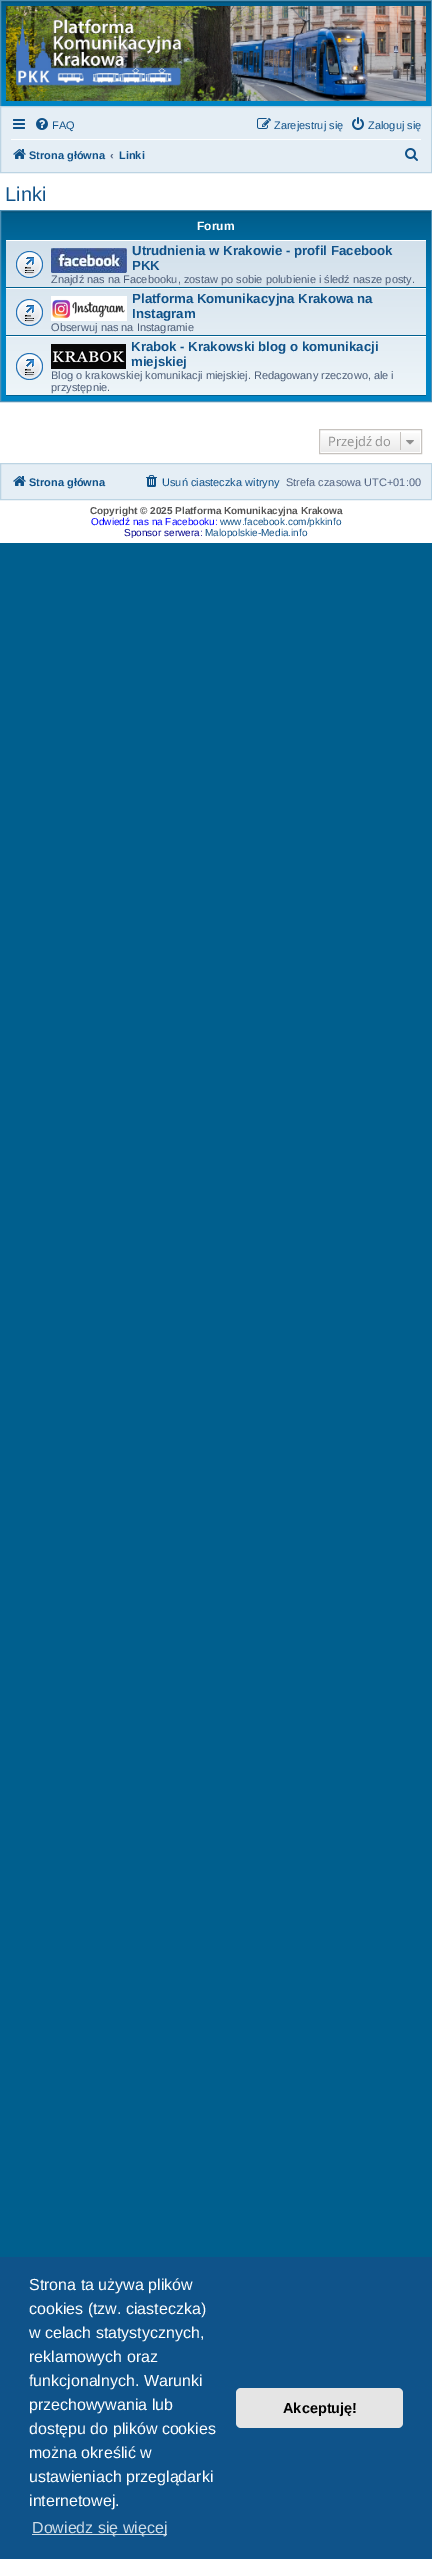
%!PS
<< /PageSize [432 2559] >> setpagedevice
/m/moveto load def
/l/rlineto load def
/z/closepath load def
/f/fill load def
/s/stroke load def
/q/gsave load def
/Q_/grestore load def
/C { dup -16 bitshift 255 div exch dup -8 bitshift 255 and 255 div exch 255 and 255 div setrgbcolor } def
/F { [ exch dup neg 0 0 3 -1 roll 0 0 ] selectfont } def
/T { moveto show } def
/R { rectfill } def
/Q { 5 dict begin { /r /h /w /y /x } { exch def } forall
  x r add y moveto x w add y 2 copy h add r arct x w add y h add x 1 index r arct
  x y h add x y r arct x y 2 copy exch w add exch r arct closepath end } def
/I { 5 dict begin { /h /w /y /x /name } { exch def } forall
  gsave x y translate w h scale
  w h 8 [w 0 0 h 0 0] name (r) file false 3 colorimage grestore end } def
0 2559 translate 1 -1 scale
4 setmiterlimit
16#005F8E C
0 0 432 2559 R
16#FFFFFF C
0 173 432 370 R
q 1 1 m 430 0 l 0 105 l -430 0 l z clip newpath
<< /ShadingType 2 /ColorSpace /DeviceRGB /Coords [216 1 216 106] /Extend [true true] /Function << /FunctionType 3 /Domain [0 1] /Functions [<< /FunctionType 2 /Domain [0 1] /C0 [0 .247 .369] /C1 [0 .361 .541] /N 1 >> << /FunctionType 2 /Domain [0 1] /C0 [0 .361 .541] /C1 [0 .518 .769] /N 1 >> << /FunctionType 2 /Domain [0 1] /C0 [0 .518 .769] /C1 [0 .518 .769] /N 1 >>] /Bounds [.02 .88] /Encode [0 1 0 1 0 1] >> >> shfill Q_
16#4F91B6 C
.5 .5 431 106 rectstroke
(1.rgb) 6 6 420 95 I
16#E5EEF5 C
.5 106.5 m 431 0 l 0 66 l -431 0 l z q f Q_
16#BCD4E3 C
s
(2.rgb) 13 119 12 10 I
(3.rgb) 36 118 12 12 I
/LiberationSans-Regular 11 F
16#105289 C
(FAQ) 52 129 T
(4.rgb) 257 118 14 11 I
(Zarejestruj się) 274 129 T
(5.rgb) 352 117 12 13 I
(Zaloguj się) 368 129 T
16#FFFFFF C
11 139 410 1 R
(6.rgb) 13 149 13 10 I
/LiberationSans-Bold 11 F
16#105289 C
(Strona główna) 29 159 T
16#536482 C
(‹) 110 159 T
16#105289 C
(Linki) 119 159 T
(7.rgb) 405 148 13 13 I
/LiberationSans-Regular 20 F
(Linki) 5 201 T
q 1 211 m 430 0 l 0 190 l -430 0 l z clip newpath
<< /ShadingType 2 /ColorSpace /DeviceRGB /Coords [216 211 216 401] /Extend [true true] /Function << /FunctionType 3 /Domain [0 1] /Functions [<< /FunctionType 2 /Domain [0 1] /C0 [0 .247 .369] /C1 [0 .361 .541] /N 1 >> << /FunctionType 2 /Domain [0 1] /C0 [0 .361 .541] /C1 [0 .518 .769] /N 1 >> << /FunctionType 2 /Domain [0 1] /C0 [0 .518 .769] /C1 [0 .518 .769] /N 1 >>] /Bounds [.01 .48] /Encode [0 1 0 1 0 1] >> >> shfill Q_
16#4F91B6 C
.5 210.5 431 191 rectstroke
/LiberationSans-Bold 12 F
16#FFFFFF C
(Forum) 197 230 T
q 6 241 m 420 0 l 0 154 l -420 0 l z clip newpath
<< /ShadingType 2 /ColorSpace /DeviceRGB /Coords [216 240 216 396] /Extend [true true] /Function << /FunctionType 2 /Domain [0 1] /C0 [.824 .878 .922] /C1 [.933 .961 .976] /N 1 >> >> shfill Q_
6 240 420 1 R
16#00608F C
6 287 420 1 R
(8.rgb) 16 251 27 27 I
(9.rgb) 51 248 76 25 I
/LiberationSans-Bold 13.25 F
16#105289 C
(Utrudnienia w Krakowie - profil Facebook) 132 255 T
(PKK) 132 270 T
/LiberationSans-Regular 11 F
16#4C5D77 C
(Znajdź nas na Facebooku, zostaw po sobie polubienie i śledź nasze posty.) 51 283 T
16#FFFFFF C
6 288 420 1 R
16#00608F C
6 335 420 1 R
(10.rgb) 16 299 27 27 I
(11.rgb) 51 296 76 25 I
/LiberationSans-Bold 13.25 F
16#105289 C
(Platforma Komunikacyjna Krakowa na) 132 303 T
(Instagram) 132 318 T
/LiberationSans-Regular 11 F
16#4C5D77 C
(Obserwuj nas na Instagramie) 51 331 T
16#FFFFFF C
6 336 420 1 R
16#00608F C
6 395 420 1 R
(12.rgb) 16 353 27 27 I
(13.rgb) 51 344 75 25 I
/LiberationSans-Bold 13.25 F
16#105289 C
(Krabok - Krakowski blog o komunikacji) 131 351 T
(miejskiej) 131 366 T
/LiberationSans-Regular 11 F
16#4C5D77 C
(Blog o krakowskiej komunikacji miejskiej. Redagowany rzeczowo, ale i) 51 379 T
(przystępnie.) 51 391 T
q 321 433 m 99 0 l 0 19 l -99 0 l z clip newpath
<< /ShadingType 2 /ColorSpace /DeviceRGB /Coords [371 430 371 453] /Extend [true true] /Function << /FunctionType 2 /Domain [0 1] /C0 [1 1 1] /C1 [.914 .914 .914] /N 1 >> >> shfill Q_
16#C7C3BF C
319.5 429.5 102 24 rectstroke
/OpenSans-Regular 13 F
16#8F8F8F C
(Przejdź do) 328 446 T
16#C7C3BF C
400 432 1 18 R
(14.rgb) 406 440 8 5 I
16#E5EEF5 C
.5 463.5 m 431 0 l 0 36 l -431 0 l z q f Q_
16#BCD4E3 C
s
(6.rgb) 13 476 13 10 I
/LiberationSans-Bold 11 F
16#105289 C
(Strona główna) 29 486 T
(15.rgb) 146 475 11 12 I
/LiberationSans-Regular 11 F
(Usuń ciasteczka witryny) 162 486 T
16#536482 C
(Strefa czasowa UTC+01:00) 286 486 T
/LiberationSans-Bold 10 F
16#555555 C
(Copyright © 2025 Platforma Komunikacyjna Krakowa) 90 514 T
/LiberationSans-Regular 10 F
16#0000FF C
(Odwiedź nas na Facebooku:) 91 525 T
16#105289 C
(www.facebook.com/pkkinfo) 220 525 T
16#00008B C
(Sponsor serwera:) 124 536 T
16#105289 C
(Malopolskie-Media.info) 205 536 T
16#0F538A C
0 2257 432 302 R
/LiberationSans-Regular 16 F
16#FFFFFF C
(Strona ta używa plików) 29 2290 T
(cookies \(tzw. ciasteczka\)) 29 2314 T
(w celach statystycznych,) 29 2338 T
(reklamowych oraz) 29 2362 T
(funkcjonalnych. Warunki) 29 2386 T
(przechowywania lub) 29 2410 T
(dostępu do plików cookies) 29 2434 T
(można określić w) 29 2458 T
(ustawieniach przeglądarki) 29 2482 T
(internetowej.) 29 2506 T
16#CFDDE8 C
32 2534 135 1 R
(Dowiedz się więcej) 32 2533 T
16#E5E5E5 C
236 2388 167 40 5 Q f
/LiberationSans-Bold 14.5 F
16#000000 C
(Akceptuję!) 283 2413 T
showpage
